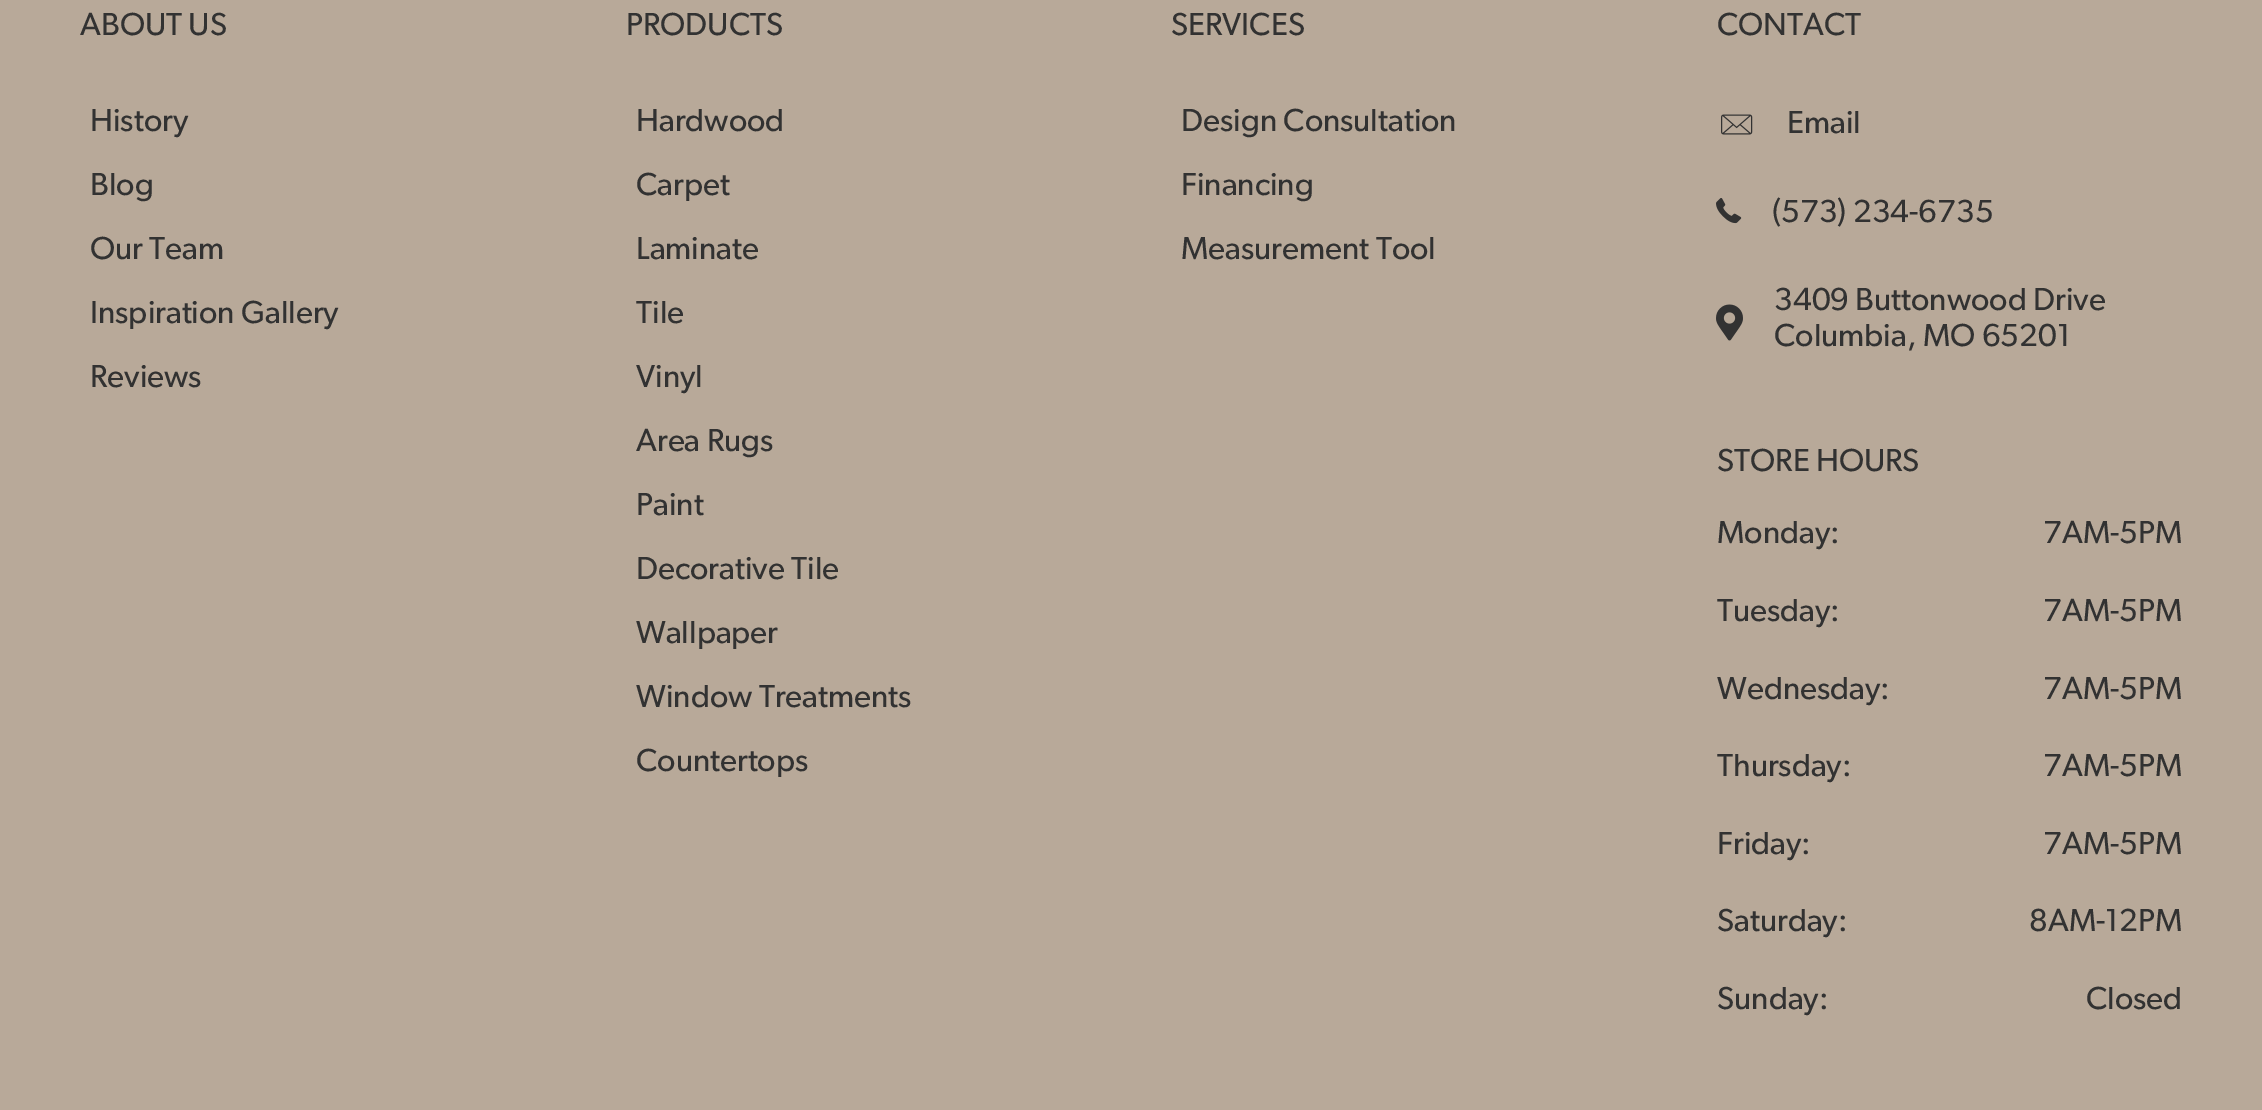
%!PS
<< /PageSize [2262 1110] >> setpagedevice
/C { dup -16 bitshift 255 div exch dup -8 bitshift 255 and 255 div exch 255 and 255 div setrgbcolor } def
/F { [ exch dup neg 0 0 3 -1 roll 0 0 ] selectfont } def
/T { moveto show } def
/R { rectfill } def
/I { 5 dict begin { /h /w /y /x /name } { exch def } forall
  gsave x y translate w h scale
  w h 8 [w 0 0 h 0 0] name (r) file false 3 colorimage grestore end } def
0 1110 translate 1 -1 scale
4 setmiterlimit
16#B8A999 C
0 0 2262 1110 R
/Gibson-Regular 32 F
16#323232 C
(ABOUT US) 80 35 T
(History) 90 131 T
(Blog) 90 195 T
(Our Team) 90 259 T
(Inspiration Gallery) 90 323 T
(Reviews) 90 387 T
(PRODUCTS) 626 35 T
(Hardwood) 636 131 T
(Carpet) 636 195 T
(Laminate) 636 259 T
(Tile) 636 323 T
(Vinyl) 636 387 T
(Area Rugs) 636 451 T
(Paint) 636 515 T
(Decorative Tile) 636 579 T
(Wallpaper) 636 643 T
(Window Treatments) 636 707 T
(Countertops) 636 771 T
(SERVICES) 1171 35 T
(Design Consultation) 1181 131 T
(Financing) 1181 195 T
(Measurement Tool) 1181 259 T
(CONTACT) 1717 35 T
(1.rgb) 1721 114 32 21 I
(Email) 1787 133 T
(2.rgb) 1716 198 26 26 I
(\(573\) 234-6735) 1772 222 T
(3.rgb) 1716 304 27 37 I
(3409 Buttonwood Drive) 1774 310 T
(Columbia, MO 65201) 1774 346 T
(STORE HOURS) 1717 471 T
(Monday:) 1717 543 T
(7AM-5PM) 2043 543 T
(Tuesday:) 1717 621 T
(7AM-5PM) 2043 621 T
(Wednesday:) 1717 699 T
(7AM-5PM) 2043 699 T
(Thursday:) 1717 776 T
(7AM-5PM) 2043 776 T
(Friday:) 1717 854 T
(7AM-5PM) 2043 854 T
(Saturday:) 1717 931 T
(8AM-12PM) 2029 931 T
(Sunday:) 1717 1009 T
(Closed) 2086 1009 T
showpage
